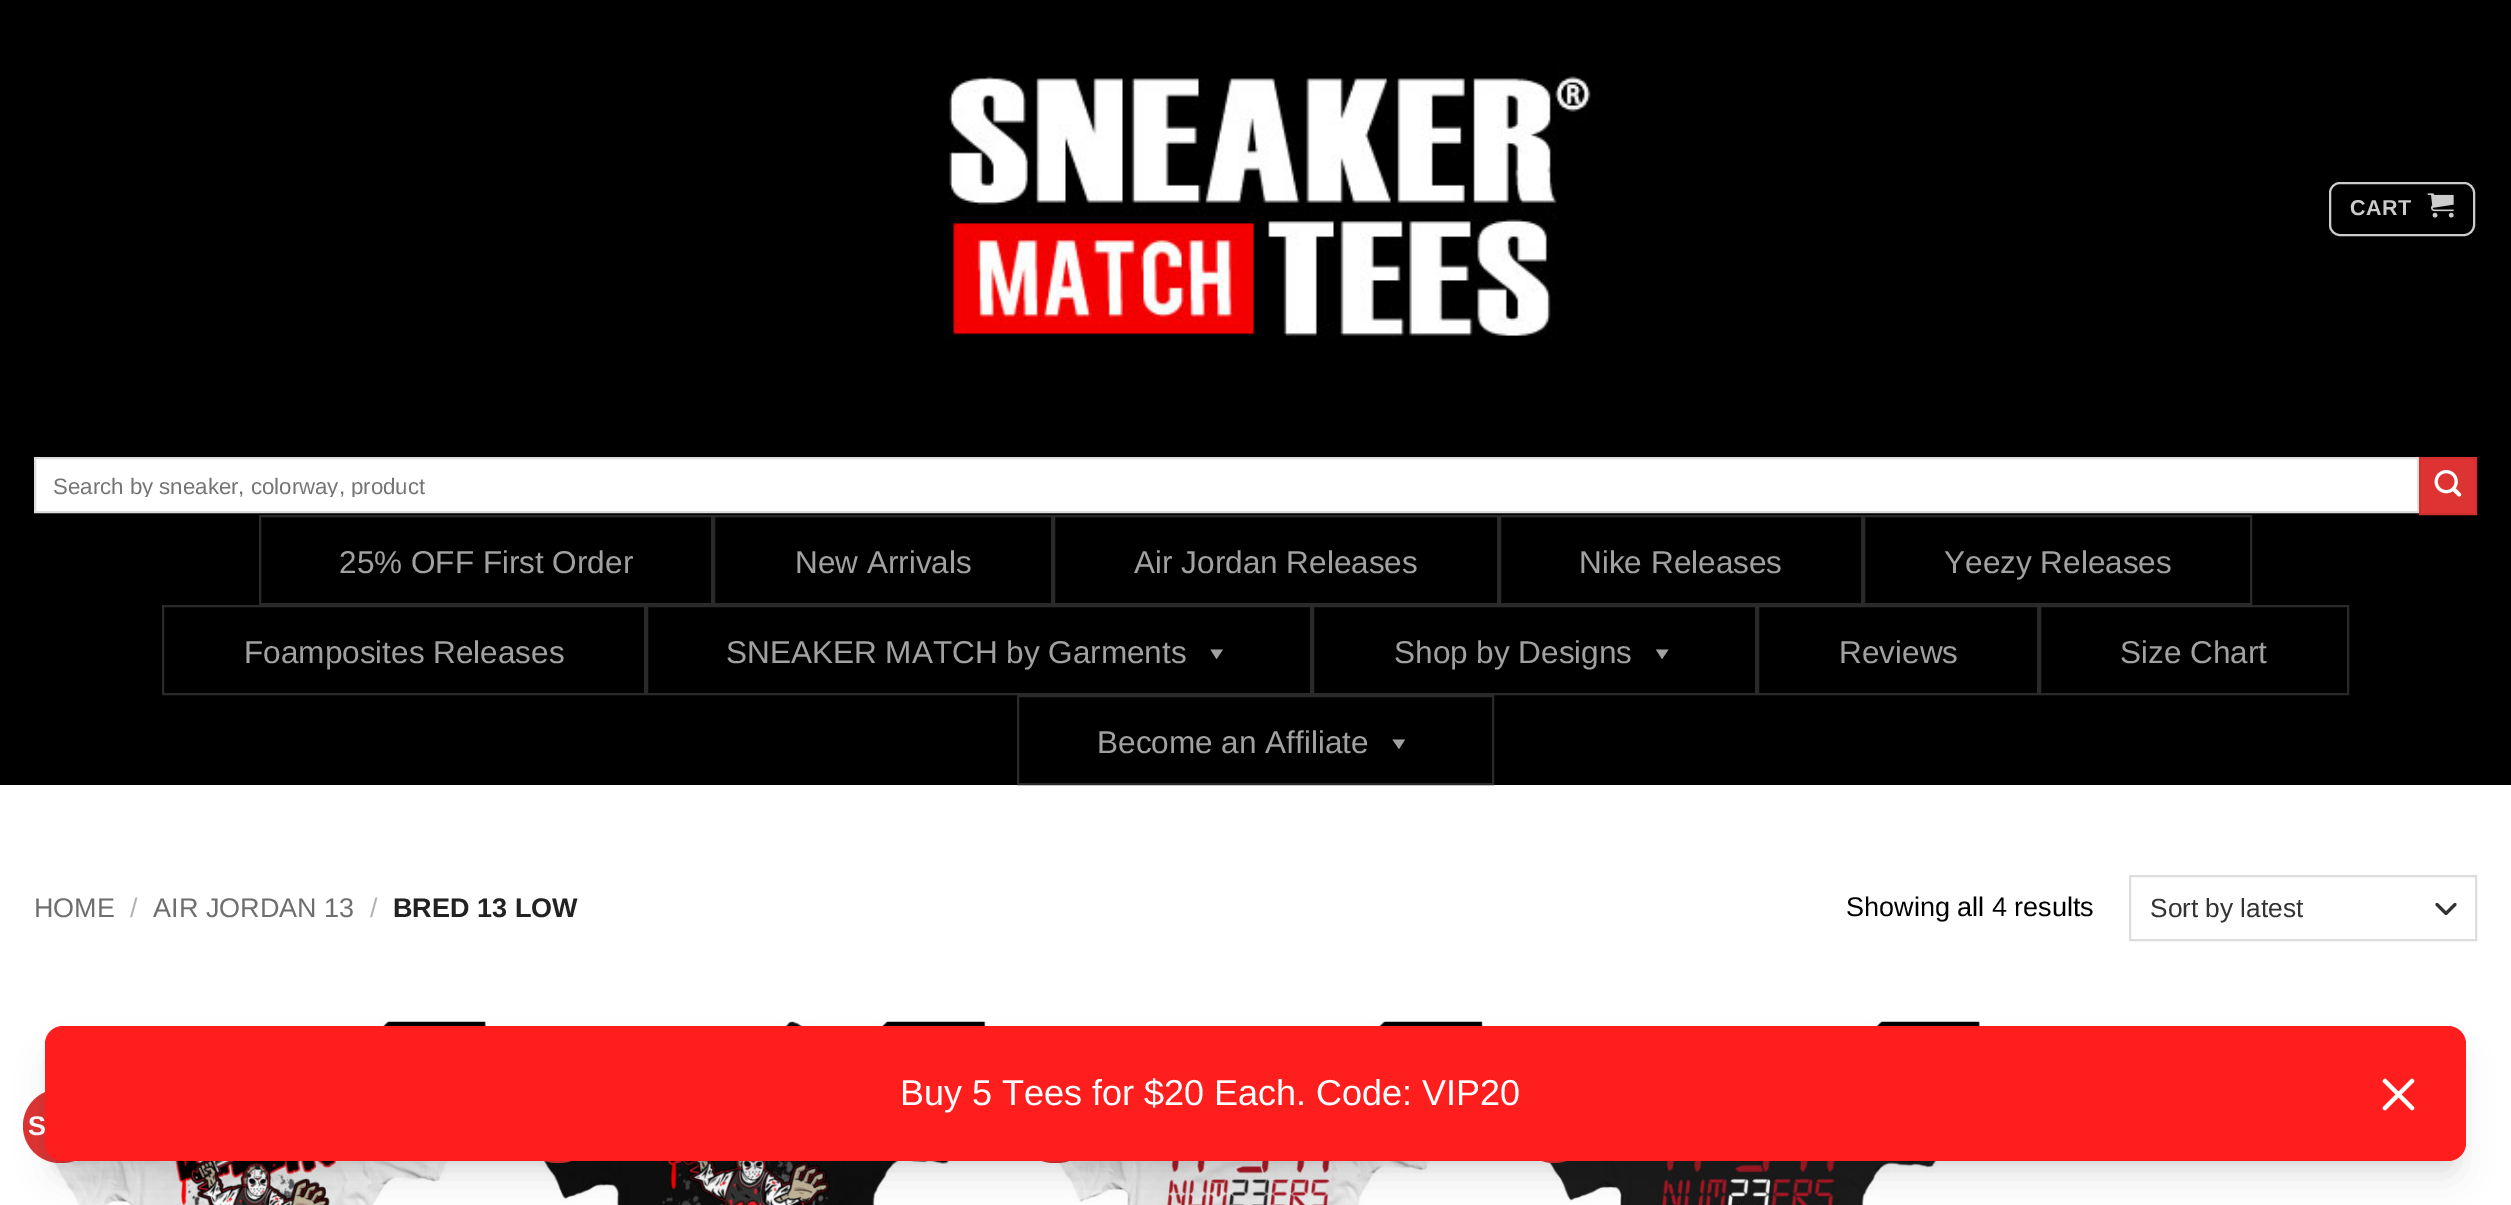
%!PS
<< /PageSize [2511 1205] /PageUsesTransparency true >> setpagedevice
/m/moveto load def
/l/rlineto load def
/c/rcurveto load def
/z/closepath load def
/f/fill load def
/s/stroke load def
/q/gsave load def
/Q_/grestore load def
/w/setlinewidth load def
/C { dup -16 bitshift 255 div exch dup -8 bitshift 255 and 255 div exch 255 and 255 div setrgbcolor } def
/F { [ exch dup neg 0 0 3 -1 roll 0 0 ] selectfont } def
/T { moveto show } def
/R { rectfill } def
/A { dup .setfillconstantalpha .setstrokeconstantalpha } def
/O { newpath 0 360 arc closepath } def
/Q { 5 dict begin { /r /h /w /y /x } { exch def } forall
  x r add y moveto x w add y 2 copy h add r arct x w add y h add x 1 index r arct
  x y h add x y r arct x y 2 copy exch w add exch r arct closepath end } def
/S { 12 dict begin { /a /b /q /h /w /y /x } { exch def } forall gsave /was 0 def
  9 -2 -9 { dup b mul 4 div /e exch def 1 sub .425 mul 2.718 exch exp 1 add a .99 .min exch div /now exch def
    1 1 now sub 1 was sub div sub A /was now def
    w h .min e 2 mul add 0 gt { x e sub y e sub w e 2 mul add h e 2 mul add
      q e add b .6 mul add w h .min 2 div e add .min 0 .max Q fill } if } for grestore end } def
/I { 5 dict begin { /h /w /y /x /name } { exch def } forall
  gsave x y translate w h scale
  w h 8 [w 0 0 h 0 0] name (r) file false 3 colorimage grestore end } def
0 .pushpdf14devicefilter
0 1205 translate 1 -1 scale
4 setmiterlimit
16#FFFFFF C
0 0 2511 1205 R
16#000000 C
0 0 2511 785 R
(1.rgb) 949 66 650 272 I
16#CCCCCC C
2 w
2330 183 144 52 10 Q s
/LiberationSans-Bold 21.5 F
2350 215 m .5 0 (CART) ashow
(2.rgb) 2427 193 27 25 I
16#FFFFFF C
35 458 m 2383 0 l 0 54 l -2383 0 l z q f Q_
16#DDDDDD C
s
q
52 473 2340 24 rectclip
/LiberationSans-Regular 22.25 F
16#757575 C
(Search by sneaker, colorway, product) 53 494 T
Q_
16#DD3333 C
2420 458 m 56 0 l 0 56 l -56 0 l z q f Q_
16#D23030 C
s
(3.rgb) 2434 470 28 27 I
16#2A2A2A C
260 516 452 88 rectstroke
/LiberationSans-Regular 31.5 F
16#A1A1A1 C
(25% OFF First Order) 339 573 T
16#2A2A2A C
714 516 338 88 rectstroke
16#A1A1A1 C
(New Arrivals) 795 573 T
16#2A2A2A C
1054 516 444 88 rectstroke
16#A1A1A1 C
(Air Jordan Releases) 1134 573 T
16#2A2A2A C
1500 516 362 88 rectstroke
16#A1A1A1 C
(Nike Releases) 1579 573 T
16#2A2A2A C
1864 516 387 88 rectstroke
16#A1A1A1 C
(Yeezy Releases) 1944 573 T
16#2A2A2A C
163 606 482 88 rectstroke
16#A1A1A1 C
(Foamposites Releases) 244 663 T
16#2A2A2A C
647 606 664 88 rectstroke
16#A1A1A1 C
(SNEAKER MATCH by Garments) 726 663 T
1223 649.5 m -6.5 9.5 l -6 -9.5 l z f
16#2A2A2A C
1313 606 443 88 rectstroke
16#A1A1A1 C
(Shop by Designs) 1394 663 T
1668.5 649.5 m -6.5 9.5 l -6 -9.5 l z f
16#2A2A2A C
1758 606 280 88 rectstroke
16#A1A1A1 C
(Reviews) 1839 663 T
16#2A2A2A C
2040 606 308 88 rectstroke
16#A1A1A1 C
(Size Chart) 2120 663 T
16#2A2A2A C
1018 696 475 88 rectstroke
16#A1A1A1 C
(Become an Affiliate) 1097 753 T
1405 739.5 m -6 9.5 l -6.5 -9.5 l z f
/LiberationSans-Regular 27 F
16#6E6E6E C
(HOME) 34 917 T
16#B2B2B2 C
(/) 130 917 T
16#6E6E6E C
(AIR JORDAN 13) 153 917 T
16#B2B2B2 C
(/) 370 917 T
/LiberationSans-Bold 27 F
16#222222 C
(BRED 13 LOW) 393 917 T
/LiberationSans-Regular 27 F
16#000000 C
(Showing all 4 results) 1846 916 T
16#333333 C
3 w
1 setlinecap
1 setlinejoin
2437 904.5 m 9 9 l 9 -9 l s
16#DDDDDD C
2 w
0 setlinecap
0 setlinejoin
2130 876 346 64 rectstroke
/LiberationSans-Regular 26.25 F
16#333333 C
(Sort by latest) 2150 917 T
(4.rgb) 44 1021 442 184 I
16#DD3333 C
23 1089 76 74 37 Q f
/LiberationSans-Bold 27 F
16#FFFFFF C
(S) 28 1135 T
(5.rgb) 531 1021 455 184 I
16#DD3333 C
520 1089 76 74 37 Q f
(6.rgb) 1043 1021 440 184 I
1017 1089 77 74 37 Q f
(7.rgb) 1526 1021 454 184 I
1554 1126 37 O f
16#000000 C
50 1040 2412 126 14 7 .05 S
52 1055 2407 122 11 17 .1 S
16#FF1E1E C
45 1026 2421 135 18 Q f
/LiberationSans-Regular 36 F
16#FFFFFF C
(Buy 5 Tees for $20 Each. Code: VIP20) 900 1105 T
2413.5 1079.5 m 1 1 1 2.5 0 3 c -27 27 l -1 1 -2 1 -3 0 c -1 -.5 -1 -2 0 -3 c 27 -27 l 1 -1 2 -1 3 0 c z f
2383.5 1079.5 m 1 -1 2 -1 3 0 c 27 27 l 1 1 1 2.5 0 3 c -1 1 -2 1 -3 0 c -27 -27 l -1 -.5 -1 -2 0 -3 c z f
.poppdf14devicefilter showpage
